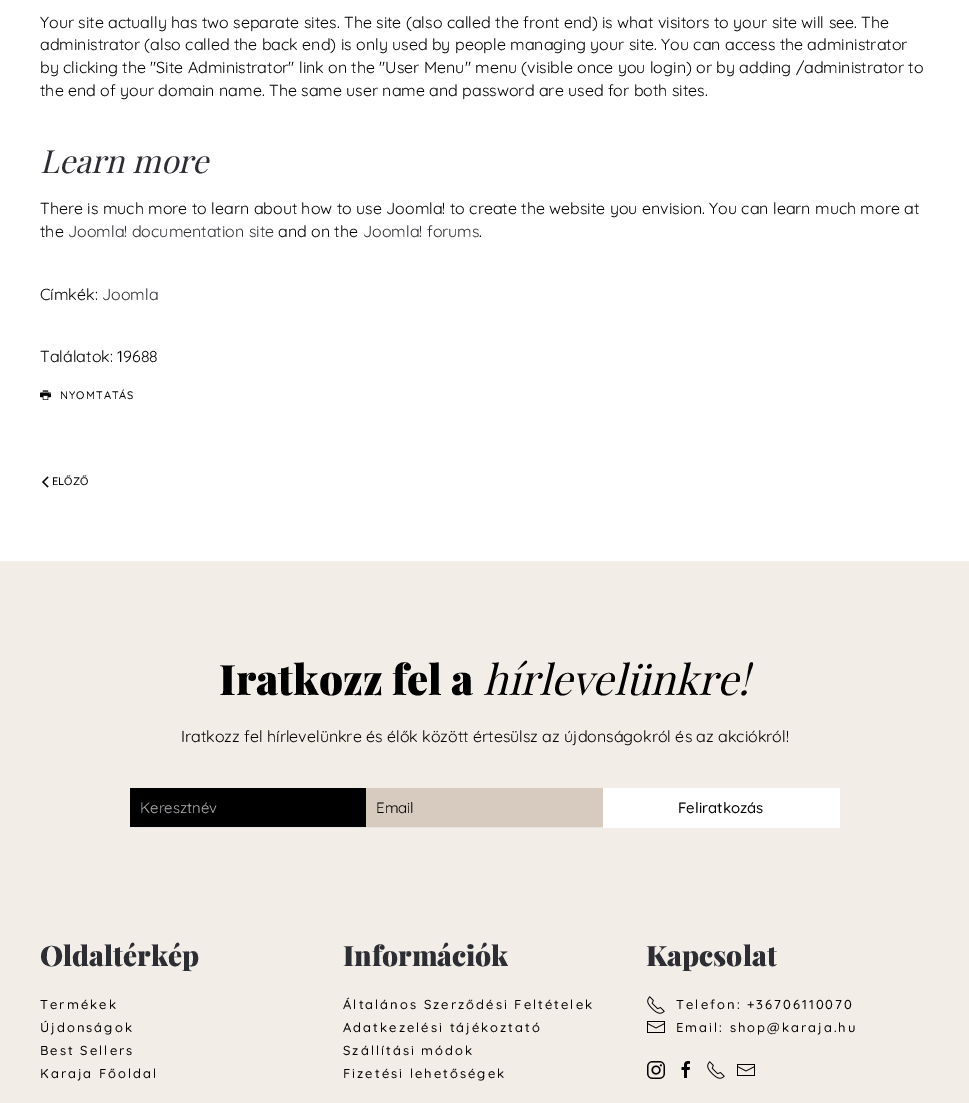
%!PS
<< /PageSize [969 1103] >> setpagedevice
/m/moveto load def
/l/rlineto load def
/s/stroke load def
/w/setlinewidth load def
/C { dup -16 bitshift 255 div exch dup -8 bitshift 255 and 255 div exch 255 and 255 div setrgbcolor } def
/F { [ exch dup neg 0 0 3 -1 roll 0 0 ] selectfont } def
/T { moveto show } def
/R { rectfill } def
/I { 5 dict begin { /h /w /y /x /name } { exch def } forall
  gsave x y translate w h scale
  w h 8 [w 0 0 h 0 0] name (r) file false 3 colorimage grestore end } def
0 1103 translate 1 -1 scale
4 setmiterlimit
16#FFFFFF C
0 0 969 1103 R
/Quicksand-Light 16 F
16#000000 C
(Your site actually has two separate sites. The site \(also called the front end\) is what visitors to your site will see. The) 40 28 T
(administrator \(also called the back end\) is only used by people managing your site. You can access the administrator) 40 50 T
(by clicking the "Site Administrator" link on the "User Menu" menu \(visible once you login\) or by adding /administrator to) 40 73 T
(the end of your domain name. The same user name and password are used for both sites.) 40 96 T
/PlayfairDisplay-Italic 32 F
16#2D2E33 C
(Learn more) 40 173 T
/Quicksand-Light 16 F
16#000000 C
(There is much more to learn about how to use Joomla! to create the website you envision. You can learn much more at) 40 214 T
(the) 40 237 T
16#2D2E33 C
(Joomla! documentation site) 68 237 T
16#000000 C
(and on the) 278 237 T
16#2D2E33 C
(Joomla! forums) 363 237 T
16#000000 C
(.) 479 237 T
(Címkék:) 40 300 T
16#2D2E33 C
(Joomla) 102 300 T
16#000000 C
(Találatok: 19688) 40 362 T
(1.rgb) 40 390 11 10 I
/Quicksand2-Light 11 F
60 399 m 1 0 (NYOMTATÁS) ashow
1.2 w
48 477 m -5 5 l 5 5 l s
(ELŐZŐ) 52 485 T
16#F3EDE8 C
0 561 969 542 R
/PlayfairDisplay-Black 42 F
16#000000 C
(Iratkozz fel a) 219 695 T
/PlayfairDisplay-Italic 42 F
(hírlevelünkre!) 483 695 T
/Quicksand-Light 16 F
(Iratkozz fel hírlevelünkre és élők között értesülsz az újdonságokról és az akciókról!) 181 742 T
130 788 236 39 R
16#E5E5E7 C
130 827 473 1 R
/Quicksand-Light 15 F
16#B4B5BA C
(Keresztnév) 140 813 T
16#D7CABF C
366 788 237 39 R
16#000000 C
(Email) 376 813 T
16#FFFFFF C
603 788 237 40 R
/Quicksand2-Light 15 F
16#000000 C
(Feliratkozás) 678 813 T
/PlayfairDisplay-Black 28 F
16#2D2E33 C
(Oldaltérkép) 40 966 T
/Quicksand2-Light 13 F
16#000000 C
40 1009 m 2 0 (Termékek) ashow
40 1032 m 2 0 (Újdonságok) ashow
40 1055 m 2 0 (Best Sellers) ashow
40 1078 m 2 0 (Karaja Főoldal) ashow
/PlayfairDisplay-Black 28 F
16#2D2E33 C
(Információk) 343 966 T
/Quicksand2-Light 13 F
16#000000 C
343 1009 m 2 0 (Általános Szerződési Feltételek) ashow
343 1032 m 2 0 (Adatkezelési tájékoztató) ashow
343 1055 m 2 0 (Szállítási módok) ashow
343 1078 m 2 0 (Fizetési lehetőségek) ashow
/PlayfairDisplay-Black 28 F
16#2D2E33 C
(Kapcsolat) 646 966 T
(2.rgb) 647 996 18 18 I
/Quicksand2-Light 13 F
16#000000 C
676 1009 m 2 0 (Telefon: +36706110070) ashow
(3.rgb) 647 1021 18 12 I
676 1032 m 2 0 (Email: shop@karaja.hu) ashow
(4.rgb) 647 1061 18 18 I
(5.rgb) 681 1061 9 17 I
(2.rgb) 707 1061 18 18 I
(3.rgb) 737 1064 18 12 I
showpage
